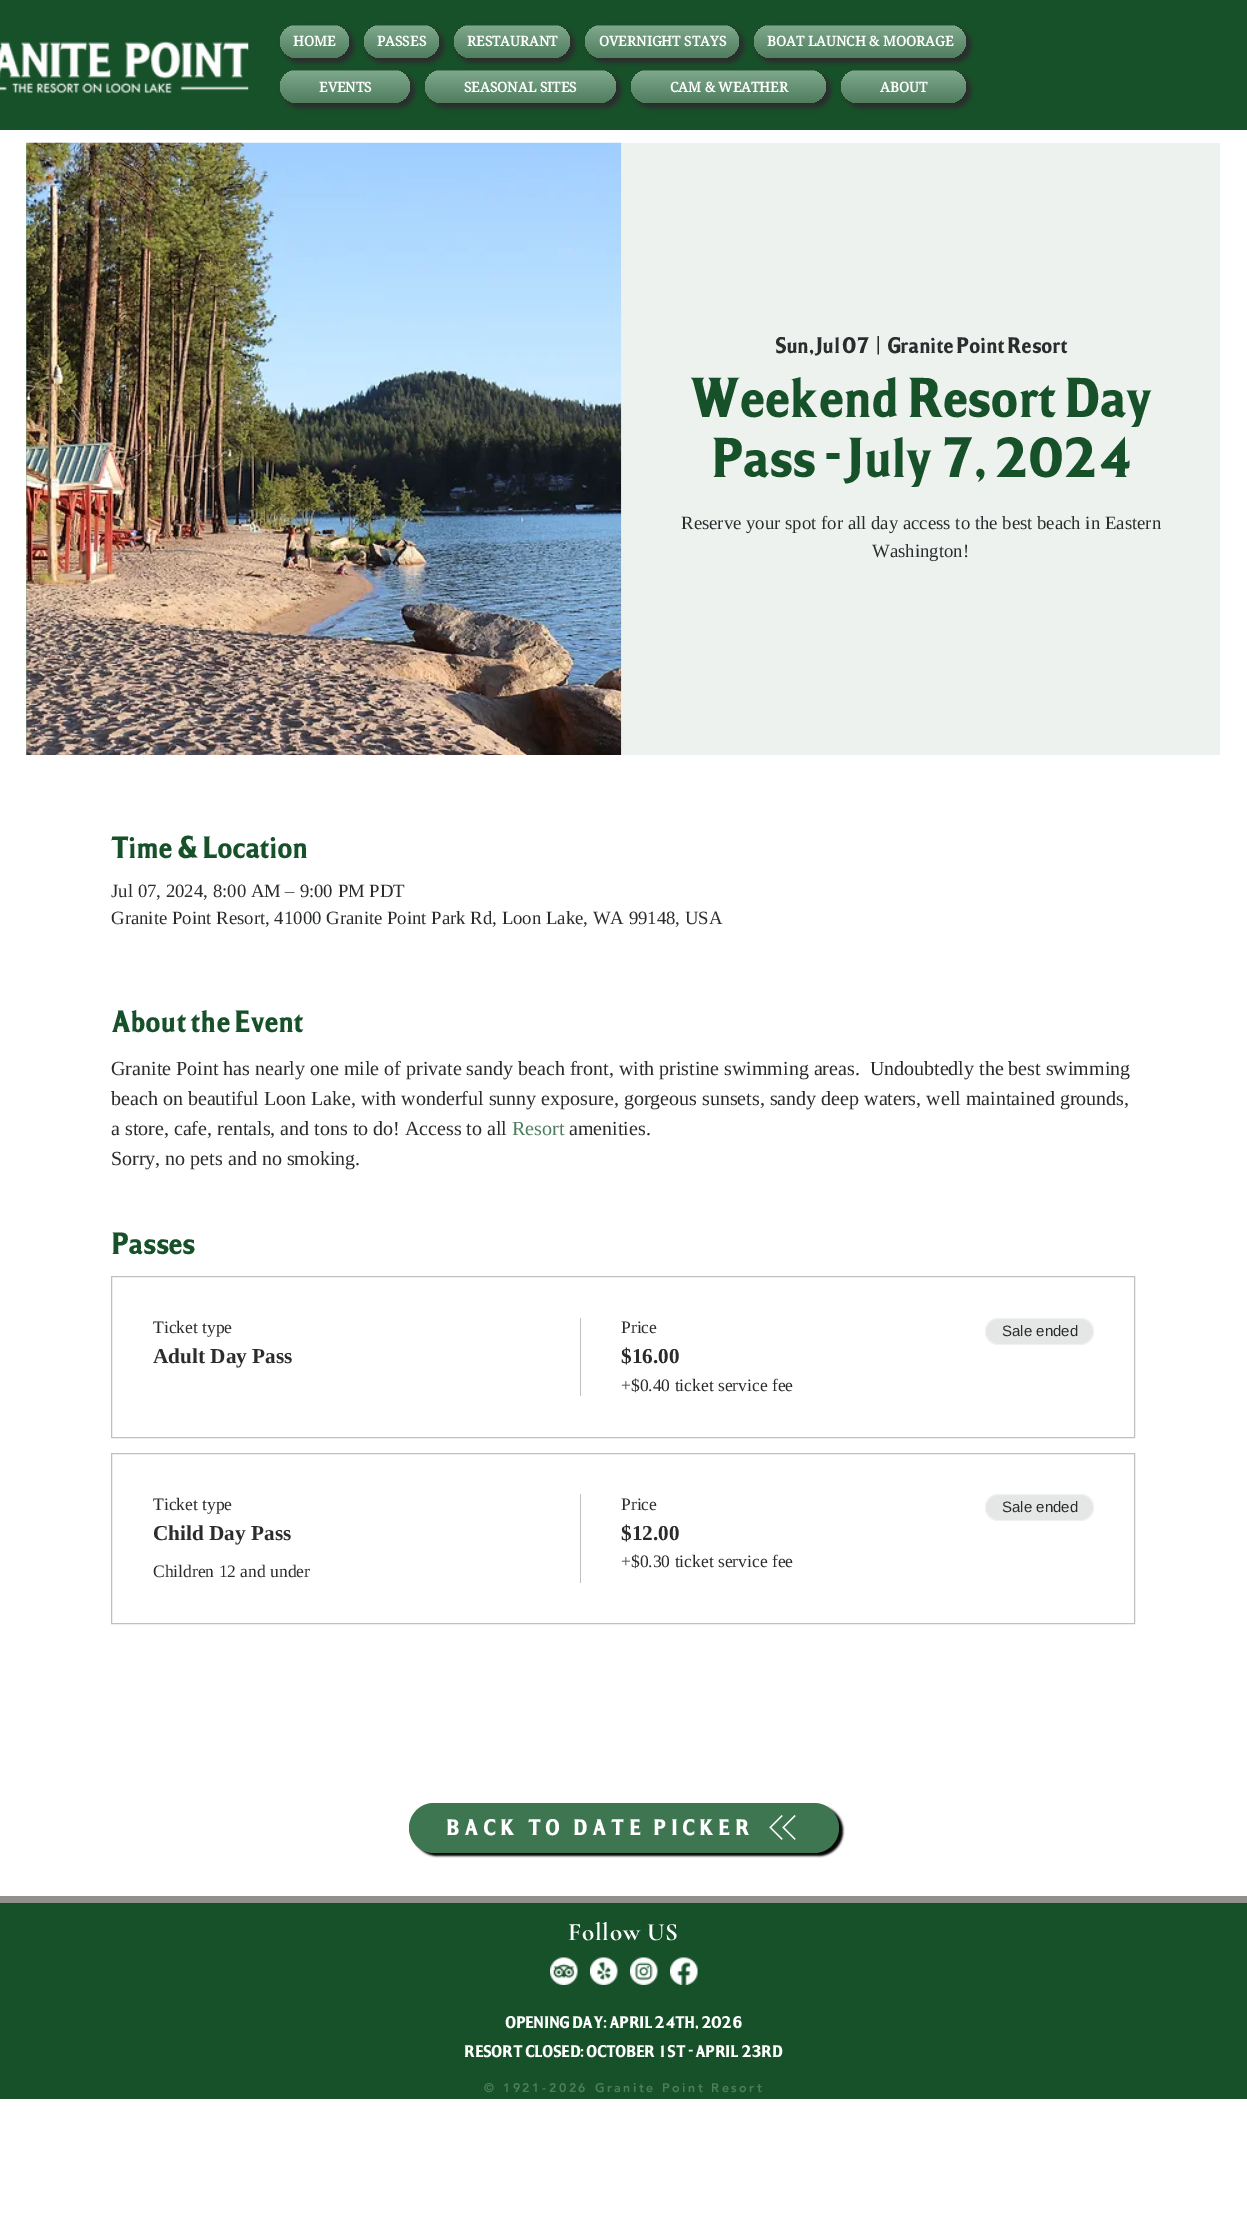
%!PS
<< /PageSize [1247 2239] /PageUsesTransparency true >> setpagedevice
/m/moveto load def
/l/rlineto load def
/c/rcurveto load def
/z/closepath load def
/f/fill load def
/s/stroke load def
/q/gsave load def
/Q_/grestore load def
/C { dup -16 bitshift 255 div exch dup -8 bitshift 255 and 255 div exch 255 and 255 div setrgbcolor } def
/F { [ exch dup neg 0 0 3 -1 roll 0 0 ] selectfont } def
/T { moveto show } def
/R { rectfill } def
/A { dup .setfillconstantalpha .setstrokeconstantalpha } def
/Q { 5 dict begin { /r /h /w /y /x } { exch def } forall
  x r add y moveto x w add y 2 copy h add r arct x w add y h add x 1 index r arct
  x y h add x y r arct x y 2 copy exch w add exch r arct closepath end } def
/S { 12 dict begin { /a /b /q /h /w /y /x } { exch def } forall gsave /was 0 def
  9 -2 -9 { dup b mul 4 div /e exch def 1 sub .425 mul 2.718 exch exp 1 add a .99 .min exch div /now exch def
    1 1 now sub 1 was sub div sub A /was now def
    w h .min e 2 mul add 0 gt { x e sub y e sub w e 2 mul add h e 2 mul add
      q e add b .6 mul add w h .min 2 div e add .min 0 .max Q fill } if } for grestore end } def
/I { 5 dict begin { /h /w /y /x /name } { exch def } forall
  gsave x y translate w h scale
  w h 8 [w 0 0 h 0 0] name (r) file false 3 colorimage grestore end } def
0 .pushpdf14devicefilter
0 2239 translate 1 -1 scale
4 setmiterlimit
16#FFFFFF C
0 0 1247 2239 R
16#165129 C
0 0 1247 130 R
(1.rgb) 0 41 249 53 I
16#2A2C2D C
283 28 71 35 17.5 2.5 1 S
q
280 25 69 33 16.5 Q clip newpath
q 291 25 m 47 0 l 0 1 l -47 0 l z clip newpath
<< /ShadingType 2 /ColorSpace /DeviceRGB /Coords [314 -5 314 26] /Extend [true true] /Function << /FunctionType 2 /Domain [0 1] /C0 [.498 .659 .549] /C1 [.31 .49 .369] /N 1 >> >> shfill Q_
q 280 26 m 69 0 l 0 15.5 l 0 9 -7.5 16.5 -16.5 16.5 c -36 0 l -9 0 -16.5 -7.5 -16.5 -16.5 c z clip newpath
<< /ShadingType 2 /ColorSpace /DeviceRGB /Coords [314 26 314 58] /Extend [true true] /Function << /FunctionType 2 /Domain [0 1] /C0 [.498 .659 .549] /C1 [.31 .49 .369] /N 1 >> >> shfill Q_
Q_
/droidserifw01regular-Bold 13.75 F
16#FFFFFF C
(HOME) 293 46 T
16#2A2C2D C
366 28 78 35 17.5 2.5 1 S
q
364 25 75 33 16.5 Q clip newpath
q 375 25 m 53 0 l 0 1 l -53 0 l z clip newpath
<< /ShadingType 2 /ColorSpace /DeviceRGB /Coords [401 -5 401 26] /Extend [true true] /Function << /FunctionType 2 /Domain [0 1] /C0 [.498 .659 .549] /C1 [.31 .49 .369] /N 1 >> >> shfill Q_
q 364 26 m 75 0 l 0 15.5 l 0 9 -7.5 16.5 -16.5 16.5 c -42 0 l -9 0 -16.5 -7.5 -16.5 -16.5 c z clip newpath
<< /ShadingType 2 /ColorSpace /DeviceRGB /Coords [401 26 401 58] /Extend [true true] /Function << /FunctionType 2 /Domain [0 1] /C0 [.498 .659 .549] /C1 [.31 .49 .369] /N 1 >> >> shfill Q_
Q_
16#FFFFFF C
(PASSES) 377 46 T
16#2A2C2D C
456 28 119 35 17.5 2.5 1 S
q
454 25 116 33 16.5 Q clip newpath
q 465 25 m 94 0 l 0 1 l -94 0 l z clip newpath
<< /ShadingType 2 /ColorSpace /DeviceRGB /Coords [512 -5 512 26] /Extend [true true] /Function << /FunctionType 2 /Domain [0 1] /C0 [.498 .659 .549] /C1 [.31 .49 .369] /N 1 >> >> shfill Q_
q 454 26 m 116 0 l 0 15.5 l 0 9 -7.5 16.5 -16.5 16.5 c -83 0 l -9 0 -16.5 -7.5 -16.5 -16.5 c z clip newpath
<< /ShadingType 2 /ColorSpace /DeviceRGB /Coords [512 26 512 58] /Extend [true true] /Function << /FunctionType 2 /Domain [0 1] /C0 [.498 .659 .549] /C1 [.31 .49 .369] /N 1 >> >> shfill Q_
Q_
16#FFFFFF C
(RESTAURANT) 467 46 T
16#2A2C2D C
588 28 156 35 17.5 2.5 1 S
q
585 25 154 33 16.5 Q clip newpath
q 596 25 m 132 0 l 0 1 l -132 0 l z clip newpath
<< /ShadingType 2 /ColorSpace /DeviceRGB /Coords [662 -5 662 26] /Extend [true true] /Function << /FunctionType 2 /Domain [0 1] /C0 [.498 .659 .549] /C1 [.31 .49 .369] /N 1 >> >> shfill Q_
q 585 26 m 154 0 l 0 15.5 l 0 9 -7.5 16.5 -16.5 16.5 c -121 0 l -9 0 -16.5 -7.5 -16.5 -16.5 c z clip newpath
<< /ShadingType 2 /ColorSpace /DeviceRGB /Coords [662 26 662 58] /Extend [true true] /Function << /FunctionType 2 /Domain [0 1] /C0 [.498 .659 .549] /C1 [.31 .49 .369] /N 1 >> >> shfill Q_
Q_
16#FFFFFF C
(OVERNIGHT STAYS) 599 46 T
16#2A2C2D C
756 28 215 35 17.5 2.5 1 S
q
754 25 212 33 16.5 Q clip newpath
q 765 25 m 190 0 l 0 1 l -190 0 l z clip newpath
<< /ShadingType 2 /ColorSpace /DeviceRGB /Coords [860 -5 860 26] /Extend [true true] /Function << /FunctionType 2 /Domain [0 1] /C0 [.498 .659 .549] /C1 [.31 .49 .369] /N 1 >> >> shfill Q_
q 754 26 m 212 0 l 0 15.5 l 0 9 -7.5 16.5 -16.5 16.5 c -179 0 l -9 0 -16.5 -7.5 -16.5 -16.5 c z clip newpath
<< /ShadingType 2 /ColorSpace /DeviceRGB /Coords [860 26 860 58] /Extend [true true] /Function << /FunctionType 2 /Domain [0 1] /C0 [.498 .659 .549] /C1 [.31 .49 .369] /N 1 >> >> shfill Q_
Q_
16#FFFFFF C
(BOAT LAUNCH & MOORAGE) 767 46 T
16#2A2C2D C
283 73 132 35 17.5 2.5 1 S
q
280 70 130 33 16.5 Q clip newpath
q 291 70 m 108 0 l 0 1 l -108 0 l z clip newpath
<< /ShadingType 2 /ColorSpace /DeviceRGB /Coords [345 40 345 71] /Extend [true true] /Function << /FunctionType 2 /Domain [0 1] /C0 [.498 .659 .549] /C1 [.31 .49 .369] /N 1 >> >> shfill Q_
q 280 71 m 130 0 l 0 15.5 l 0 9 -7.5 16.5 -16.5 16.5 c -97 0 l -9 0 -16.5 -7.5 -16.5 -16.5 c z clip newpath
<< /ShadingType 2 /ColorSpace /DeviceRGB /Coords [345 71 345 103] /Extend [true true] /Function << /FunctionType 2 /Domain [0 1] /C0 [.498 .659 .549] /C1 [.31 .49 .369] /N 1 >> >> shfill Q_
Q_
16#FFFFFF C
(EVENTS) 319 92 T
16#2A2C2D C
428 73 193 35 17.5 2.5 1 S
q
425 70 191 33 16.5 Q clip newpath
q 436 70 m 169 0 l 0 1 l -169 0 l z clip newpath
<< /ShadingType 2 /ColorSpace /DeviceRGB /Coords [521 40 521 71] /Extend [true true] /Function << /FunctionType 2 /Domain [0 1] /C0 [.498 .659 .549] /C1 [.31 .49 .369] /N 1 >> >> shfill Q_
q 425 71 m 191 0 l 0 15.5 l 0 9 -7.5 16.5 -16.5 16.5 c -158 0 l -9 0 -16.5 -7.5 -16.5 -16.5 c z clip newpath
<< /ShadingType 2 /ColorSpace /DeviceRGB /Coords [521 71 521 103] /Extend [true true] /Function << /FunctionType 2 /Domain [0 1] /C0 [.498 .659 .549] /C1 [.31 .49 .369] /N 1 >> >> shfill Q_
Q_
16#FFFFFF C
(SEASONAL SITES) 464 92 T
16#2A2C2D C
634 73 197 35 17.5 2.5 1 S
q
631 70 195 33 16.5 Q clip newpath
q 642 70 m 173 0 l 0 1 l -173 0 l z clip newpath
<< /ShadingType 2 /ColorSpace /DeviceRGB /Coords [729 40 729 71] /Extend [true true] /Function << /FunctionType 2 /Domain [0 1] /C0 [.498 .659 .549] /C1 [.31 .49 .369] /N 1 >> >> shfill Q_
q 631 71 m 195 0 l 0 15.5 l 0 9 -7.5 16.5 -16.5 16.5 c -162 0 l -9 0 -16.5 -7.5 -16.5 -16.5 c z clip newpath
<< /ShadingType 2 /ColorSpace /DeviceRGB /Coords [729 71 729 103] /Extend [true true] /Function << /FunctionType 2 /Domain [0 1] /C0 [.498 .659 .549] /C1 [.31 .49 .369] /N 1 >> >> shfill Q_
Q_
16#FFFFFF C
(CAM & WEATHER) 670 92 T
16#2A2C2D C
844 73 127 35 17.5 2.5 1 S
q
841 70 125 33 16.5 Q clip newpath
q 852 70 m 103 0 l 0 1 l -103 0 l z clip newpath
<< /ShadingType 2 /ColorSpace /DeviceRGB /Coords [904 40 904 71] /Extend [true true] /Function << /FunctionType 2 /Domain [0 1] /C0 [.498 .659 .549] /C1 [.31 .49 .369] /N 1 >> >> shfill Q_
q 841 71 m 125 0 l 0 15.5 l 0 9 -7.5 16.5 -16.5 16.5 c -92 0 l -9 0 -16.5 -7.5 -16.5 -16.5 c z clip newpath
<< /ShadingType 2 /ColorSpace /DeviceRGB /Coords [904 71 904 103] /Extend [true true] /Function << /FunctionType 2 /Domain [0 1] /C0 [.498 .659 .549] /C1 [.31 .49 .369] /N 1 >> >> shfill Q_
Q_
16#FFFFFF C
(ABOUT) 880 92 T
16#7FA88C C
26 143 1 612 R
(2.rgb) 26 142 596 613 I
0.1 A
16#4F7D5E C
621 143 599 612 R
/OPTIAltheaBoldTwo-Bold 20 F
1 A
16#2A2C2D C
(Sun, Jul 07) 775 353 T
(|) 876 353 T
(Granite Point Resort) 887 353 T
/OPTIAltheaBoldTwo-Bold 50 F
16#165129 C
(Weekend Resort Day) 689 417 T
(Pass - July 7, 2024) 711 477 T
/LiberationSerif-Regular 18.75 F
16#2A2C2D C
(Reserve your spot for all day access to the best beach in Eastern) 681 529 T
(Washington!) 872 557 T
/OPTIAltheaBoldTwo-Bold 27.5 F
16#165129 C
(Time & Location) 111 858 T
/LiberationSerif-Regular 18.75 F
16#2A2C2D C
(Jul 07, 2024, 8:00 AM – 9:00 PM PDT) 111 897 T
(Granite Point Resort, 41000 Granite Point Park Rd, Loon Lake, WA 99148, USA) 111 924 T
/OPTIAltheaBoldTwo-Bold 27.5 F
16#165129 C
(About the Event) 111 1032 T
/LiberationSerif-Regular 20 F
16#2A2C2D C
(Granite Point has nearly one mile of private sandy beach front, with pristine swimming areas.  Undoubtedly the best swimming) 111 1075 T
(beach on beautiful Loon Lake, with wonderful sunny exposure, gorgeous sunsets, sandy deep waters, well maintained grounds,) 111 1105 T
(a store, cafe, rentals, and tons to do! Access to all) 111 1135 T
16#4F7D5E C
(Resort) 512 1135 T
16#2A2C2D C
(amenities.) 569 1135 T
(Sorry, no pets and no smoking.) 111 1165 T
/OPTIAltheaBoldTwo-Bold 27.5 F
16#165129 C
(Passes) 111 1254 T
16#BFC0C0 C
111.5 1276.5 1023 161 rectstroke
/LiberationSerif-Regular 17.5 F
16#2A2C2D C
(Ticket type) 153 1333 T
/LiberationSerif-Bold 21.25 F
(Adult Day Pass) 153 1363 T
16#BFC0C0 C
580 1318 1 78 R
/LiberationSerif-Regular 17.5 F
16#2A2C2D C
(Price) 621 1333 T
/LiberationSerif-Bold 21.25 F
($16.00) 621 1363 T
/LiberationSerif-Regular 17.5 F
(+$0.40 ticket service fee) 621 1391 T
16#E5E6E6 C
985 1318 109 27 13.5 Q f
0.4 A
16#FFFFFF C
985.5 1318.5 108 26 13 Q s
/LiberationSans-Regular 15 F
1 A
16#2A2C2D C
(Sale ended) 1002 1336 T
16#BFC0C0 C
111.5 1453.5 1023 170 rectstroke
/LiberationSerif-Regular 17.5 F
16#2A2C2D C
(Ticket type) 153 1510 T
/LiberationSerif-Bold 21.25 F
(Child Day Pass) 153 1540 T
/LiberationSerif-Regular 17.5 F
(Children 12 and under) 153 1577 T
16#BFC0C0 C
580 1494 1 89 R
16#2A2C2D C
(Price) 621 1510 T
/LiberationSerif-Bold 21.25 F
($12.00) 621 1540 T
/LiberationSerif-Regular 17.5 F
(+$0.30 ticket service fee) 621 1567 T
16#E5E6E6 C
985 1494 109 27 13.5 Q f
0.4 A
16#FFFFFF C
985.5 1494.5 108 26 13 Q s
/LiberationSans-Regular 15 F
1 A
16#2A2C2D C
(Sale ended) 1002 1512 T
16#000000 C
413 1806 430 50 25 1 1 S
16#3F7652 C
409 1803 430 50 25 Q f
/OPTIAltheaBoldTwo-Bold 20 F
16#FFFFFF C
446 1835 m 5 0 (BACK TO DATE PICKER) ashow
(3.rgb) 769 1815 27 25 I
16#165129 C
0 1903 1247 196 R
16#92908A C
0 1896 1247 7 R
/CormorantGaramond-Bold 25 F
16#FFFFFF C
568 1940 m .75 0 (Follow US) ashow
(4.rgb) 550 1957 28 28 I
(5.rgb) 590 1957 28 28 I
(6.rgb) 630 1957 28 28 I
(7.rgb) 670 1957 28 28 I
/OPTIAltheaBoldTwo-Bold 15 F
(OPENING DAY: APRIL 24TH, 2026) 505 2028 T
(RESORT CLOSED: OCTOBER 1ST - APRIL 23RD) 464 2057 T
/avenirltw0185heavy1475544-Black 12.5 F
16#4F7D5E C
484 2092 m 2.5 0 (© 1921-2026 Granite Point Resort) ashow
.poppdf14devicefilter showpage
